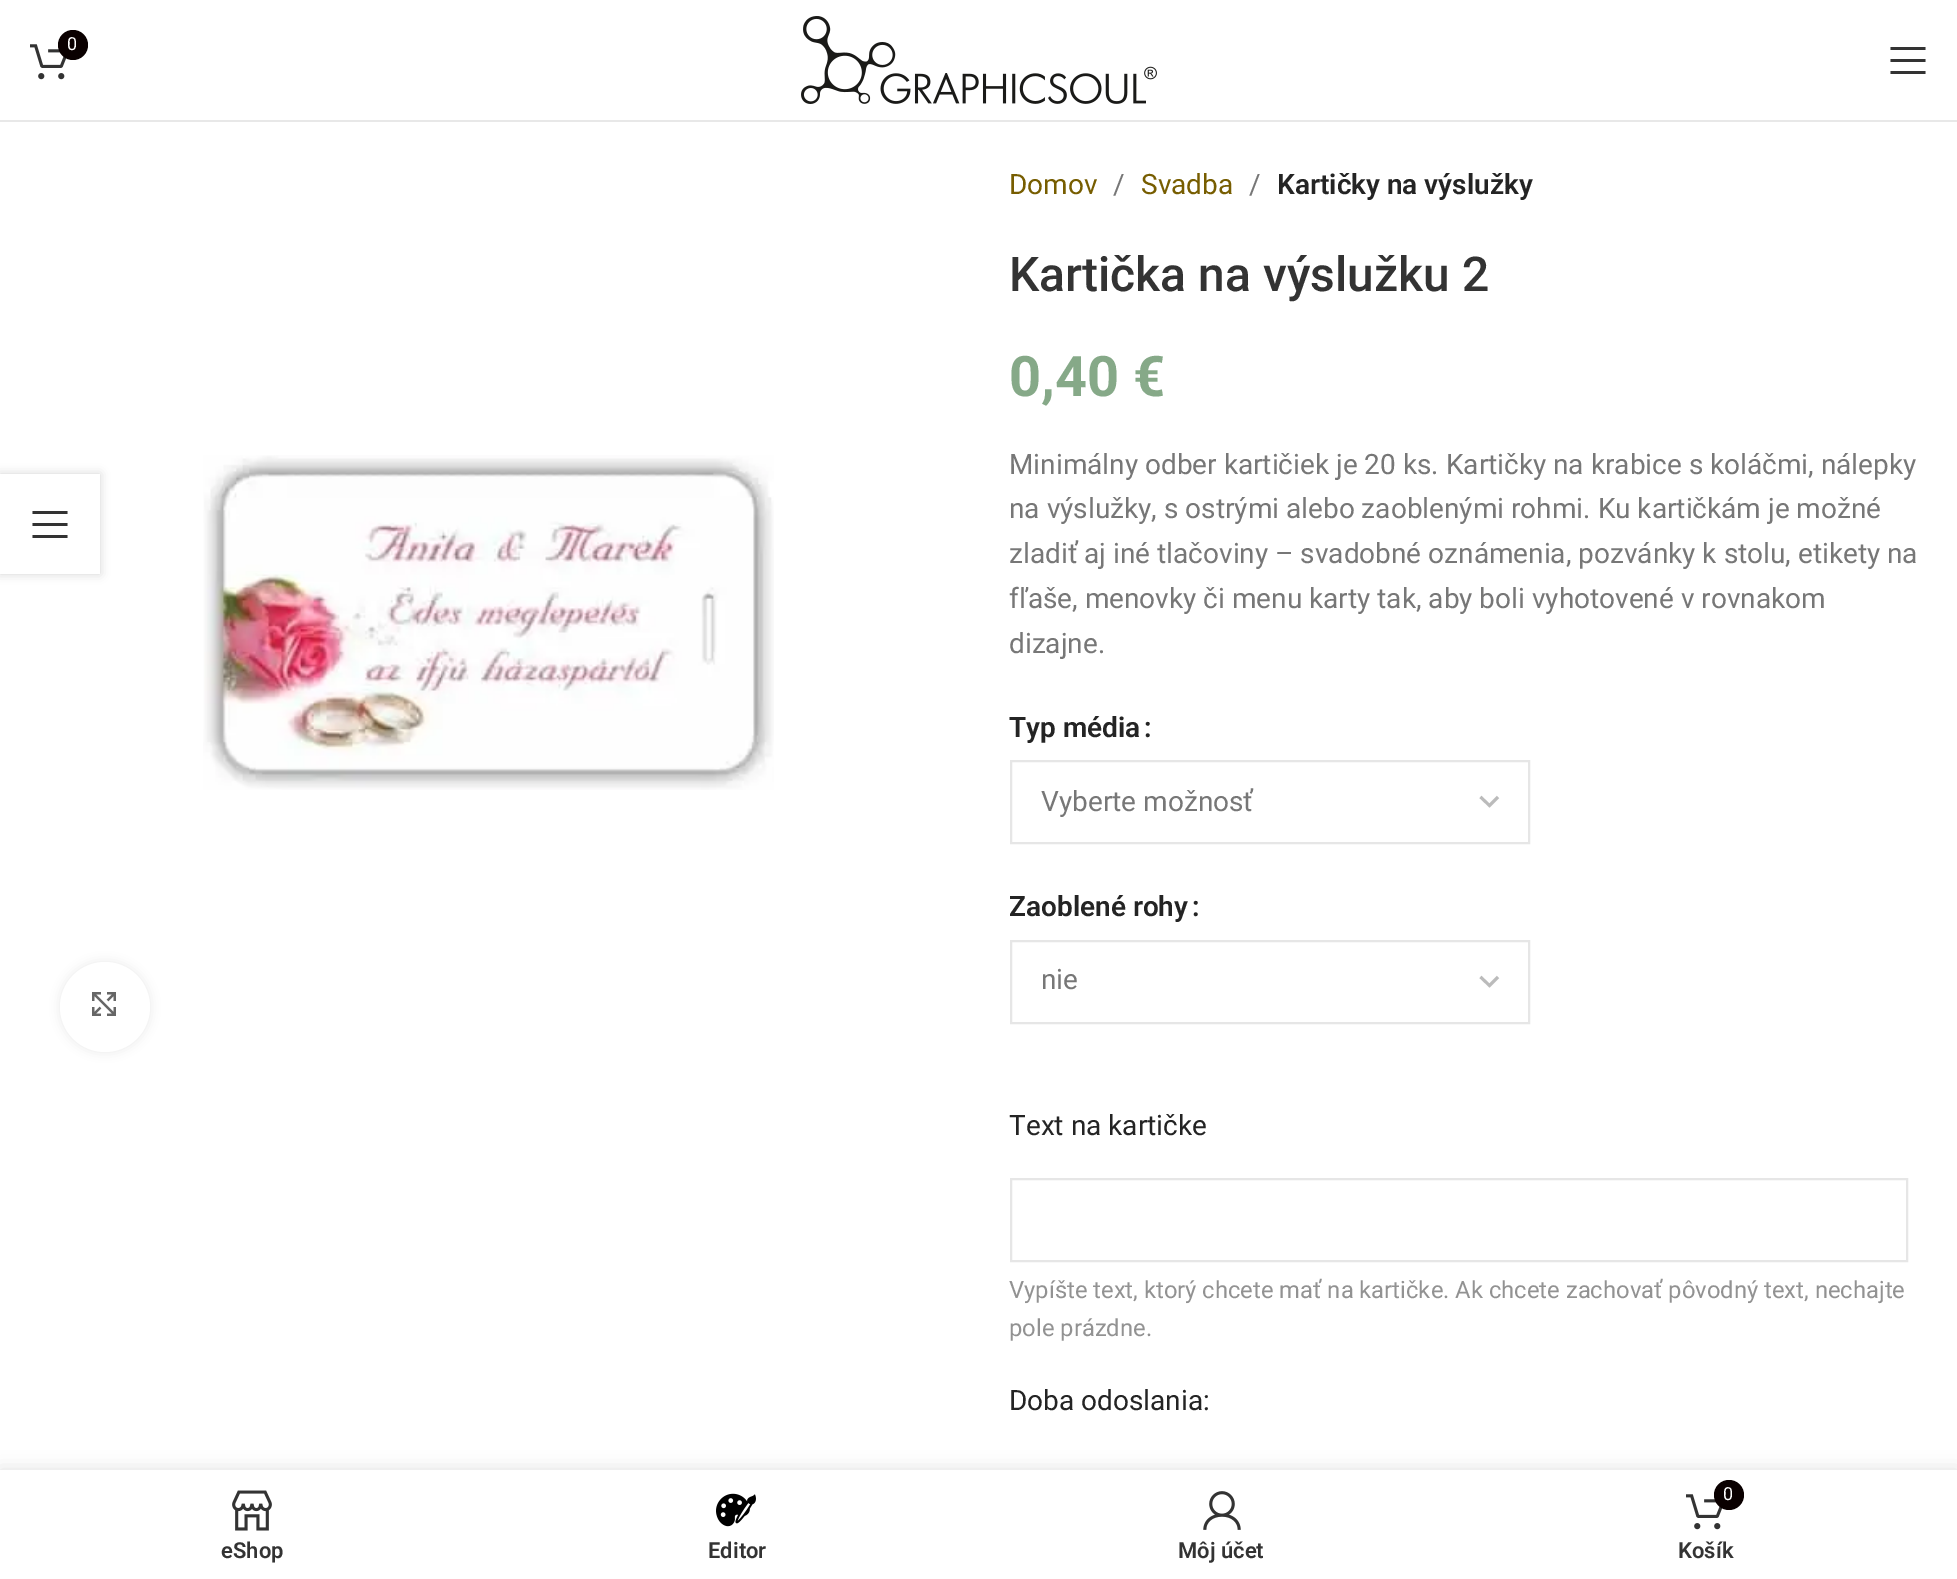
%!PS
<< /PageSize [1957 1579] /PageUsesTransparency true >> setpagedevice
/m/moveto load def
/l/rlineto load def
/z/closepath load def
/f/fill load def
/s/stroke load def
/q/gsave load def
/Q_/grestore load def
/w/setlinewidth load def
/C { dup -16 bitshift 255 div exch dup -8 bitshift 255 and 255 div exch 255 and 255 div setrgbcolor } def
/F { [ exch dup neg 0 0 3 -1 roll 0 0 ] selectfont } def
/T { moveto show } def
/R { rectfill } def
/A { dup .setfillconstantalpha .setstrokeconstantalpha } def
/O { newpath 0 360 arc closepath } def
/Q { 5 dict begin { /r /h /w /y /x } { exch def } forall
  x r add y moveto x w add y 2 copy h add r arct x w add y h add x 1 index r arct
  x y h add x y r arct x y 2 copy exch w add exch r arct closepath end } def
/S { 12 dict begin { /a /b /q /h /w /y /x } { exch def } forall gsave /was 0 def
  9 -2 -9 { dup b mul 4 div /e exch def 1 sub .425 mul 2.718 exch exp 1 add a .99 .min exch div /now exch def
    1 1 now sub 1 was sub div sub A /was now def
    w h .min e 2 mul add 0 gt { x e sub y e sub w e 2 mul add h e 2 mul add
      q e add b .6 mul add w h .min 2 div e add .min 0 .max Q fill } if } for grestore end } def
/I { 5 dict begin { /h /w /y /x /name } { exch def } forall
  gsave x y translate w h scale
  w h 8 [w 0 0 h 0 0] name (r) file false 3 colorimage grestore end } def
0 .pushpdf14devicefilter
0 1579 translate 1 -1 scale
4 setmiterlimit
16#FFFFFF C
0 0 1957 1579 R
q
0 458 m 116 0 l 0 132 l -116 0 l z 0 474 m 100 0 l 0 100 l -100 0 l z eoclip newpath
16#000000 C
0 474 100 100 0 5 .17 S
Q_
16#333333 C
32.5 514 m 35 0 l 0 -3 l -35 0 l z 32.5 526 m 35 0 l 0 -3 l -35 0 l z 32.5 538 m 35 0 l 0 -3 l -35 0 l z f
16#E8E8E8 C
0 120 1957 2 R
(1.rgb) 30 44 37 36 I
16#0A0000 C
73 45 15 O f
/Roboto-Regular 18 F
16#FFFFFF C
(0) 67 50 T
(2.rgb) 801 16 356 88 I
16#333333 C
1890.5 50 m 35 0 l 0 -3 l -35 0 l z 1890.5 62 m 35 0 l 0 -3 l -35 0 l z 1890.5 74 m 35 0 l 0 -3 l -35 0 l z f
(3.rgb) 203 455 571 335 I
16#000000 C
60 962 90 90 45 5 .08 S
16#FFFFFF C
105 1007 45 O f
(4.rgb) 92 992 24 24 I
/Roboto-Regular 28 F
16#775D00 C
(Domov) 1009 194 T
16#777777 C
(/) 1113 194 T
16#775D00 C
(Svadba) 1141 194 T
16#777777 C
(/) 1249 194 T
/Roboto-SemiBold 28 F
16#242424 C
(Kartičky na výslužky) 1277 194 T
/Roboto-Medium 48 F
16#333333 C
(Kartička na výslužku 2) 1009 291 T
/Roboto-Bold 56 F
16#86A988 C
(0,40 €) 1009 396 T
/Roboto-Regular 28 F
16#777777 C
(Minimálny odber kartičiek je 20 ks. Kartičky na krabice s koláčmi, nálepky) 1009 474 T
(na výslužky, s ostrými alebo zaoblenými rohmi. Ku kartičkám je možné) 1009 518 T
(zladiť aj iné tlačoviny – svadobné oznámenia, pozvánky k stolu, etikety na) 1009 563 T
(fľaše, menovky či menu karty tak, aby boli vyhotovené v rovnakom) 1009 608 T
(dizajne.) 1009 653 T
/Roboto-SemiBold 28 F
16#242424 C
(Typ média) 1009 737 T
(:) 1144 737 T
16#BBBBBB C
2.9 w
1480.5 797 m 9 8.5 l 8.5 -8.5 l s
16#E6E6E6 C
2 w
1011 761 518 82 rectstroke
/Roboto-Regular 28 F
16#777777 C
(Vyberte možnosť) 1041 811 T
/Roboto-SemiBold 28 F
16#242424 C
(Zaoblené rohy) 1009 916 T
(:) 1192 916 T
16#BBBBBB C
2.9 w
1480.5 977 m 9 8.5 l 8.5 -8.5 l s
16#E6E6E6 C
2 w
1011 941 518 82 rectstroke
/Roboto-Regular 28 F
16#777777 C
(nie) 1041 989 T
16#242424 C
(Text na kartičke) 1009 1135 T
16#E6E6E6 C
1011 1179 896 82 rectstroke
/Roboto-Regular 23.8 F
16#929292 C
(Vypíšte text, ktorý chcete mať na kartičke. Ak chcete zachovať pôvodný text, nechajte) 1009 1298 T
(pole prázdne.) 1009 1336 T
/Roboto-Regular 28 F
16#242424 C
(Doba odoslania:) 1009 1410 T
16#000000 C
0 1470 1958 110 0 9 .12 S
16#FFFFFF C
0 1470 1957 109 R
(5.rgb) 232 1490 40 41 I
/Roboto-SemiBold 22 F
16#333333 C
(eShop) 221 1558 T
(6.rgb) 716 1493 40 34 I
(Editor) 708 1558 T
(7.rgb) 1203 1491 38 39 I
(Môj účet) 1178 1558 T
(1.rgb) 1686 1494 37 36 I
16#0A0000 C
1729 1495 15 O f
/Roboto-Regular 18 F
16#FFFFFF C
(0) 1723 1500 T
/Roboto-SemiBold 22 F
16#333333 C
(Košík) 1678 1558 T
.poppdf14devicefilter showpage
